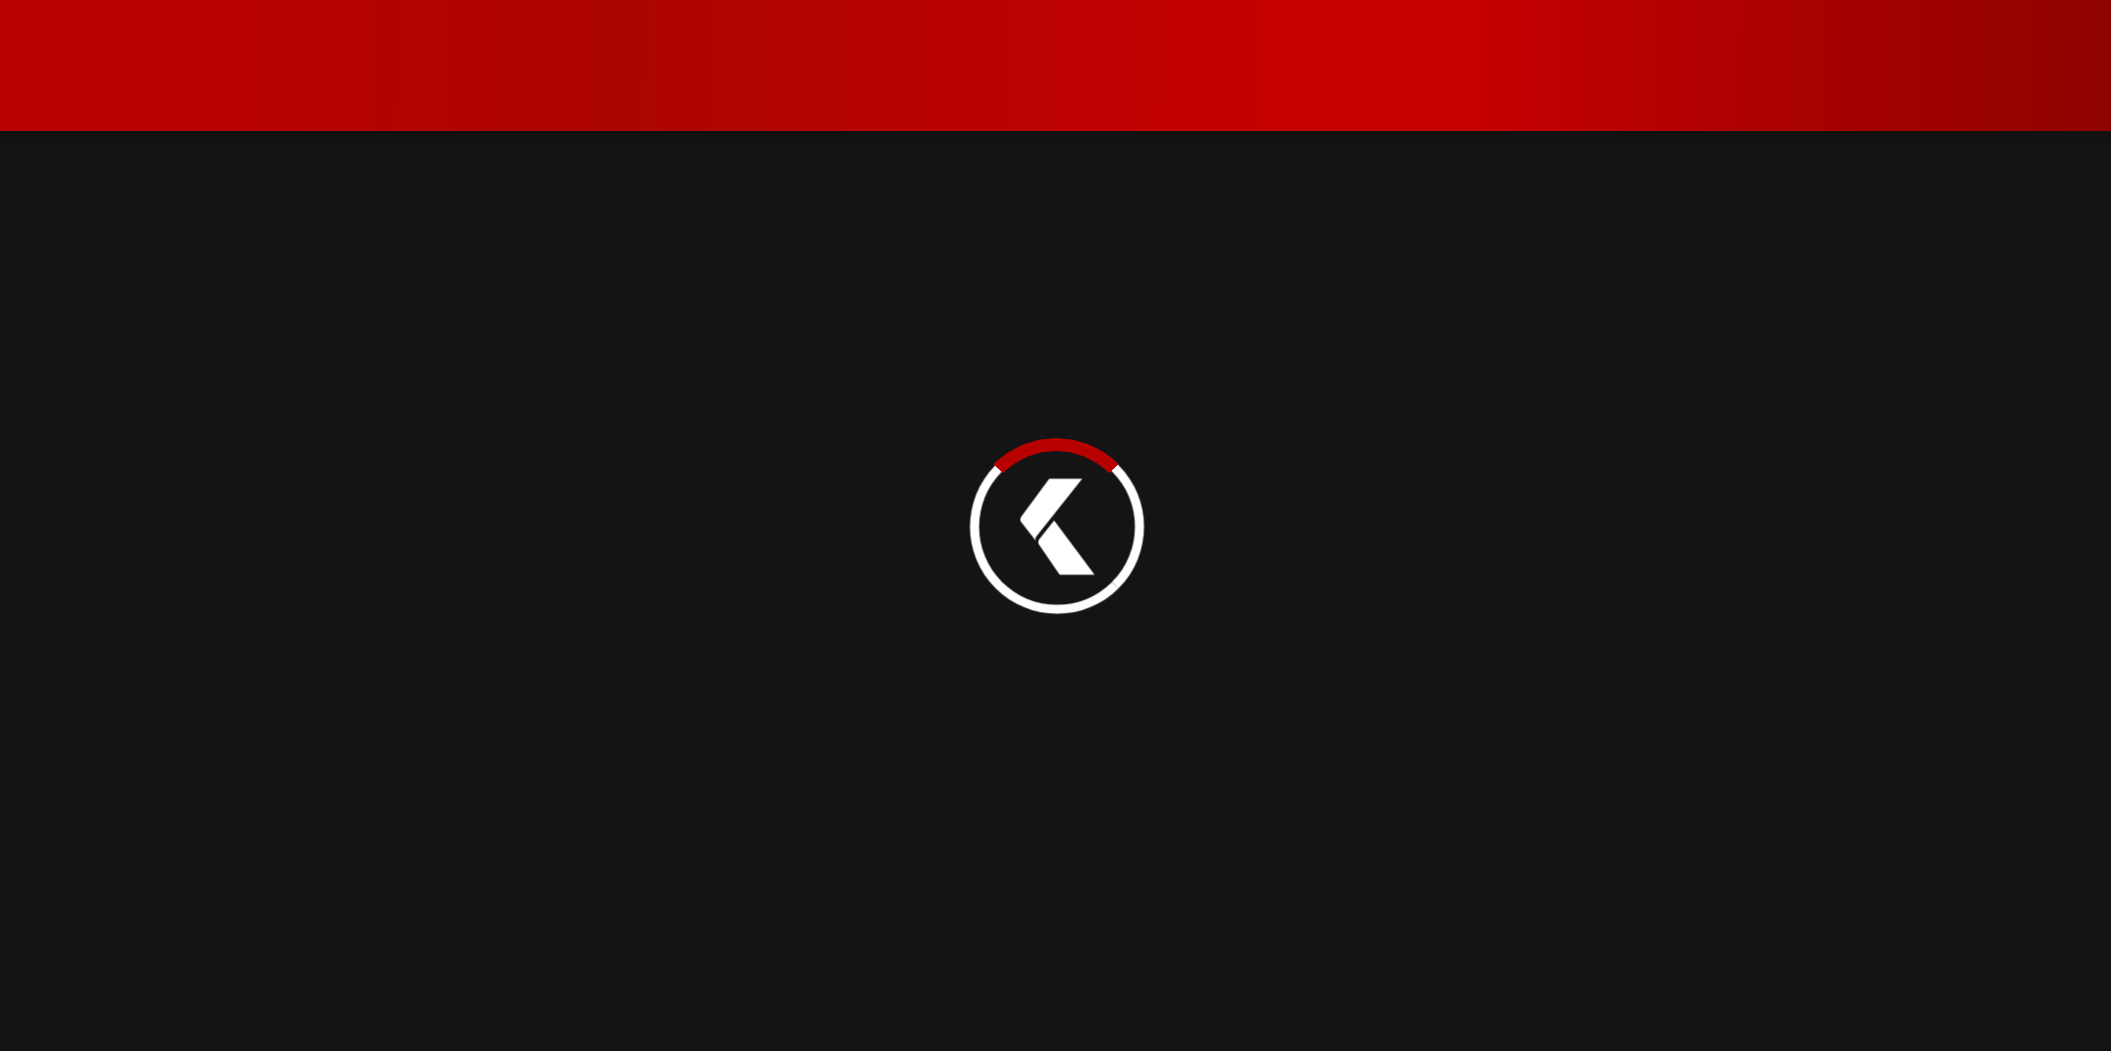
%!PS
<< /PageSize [2111 1051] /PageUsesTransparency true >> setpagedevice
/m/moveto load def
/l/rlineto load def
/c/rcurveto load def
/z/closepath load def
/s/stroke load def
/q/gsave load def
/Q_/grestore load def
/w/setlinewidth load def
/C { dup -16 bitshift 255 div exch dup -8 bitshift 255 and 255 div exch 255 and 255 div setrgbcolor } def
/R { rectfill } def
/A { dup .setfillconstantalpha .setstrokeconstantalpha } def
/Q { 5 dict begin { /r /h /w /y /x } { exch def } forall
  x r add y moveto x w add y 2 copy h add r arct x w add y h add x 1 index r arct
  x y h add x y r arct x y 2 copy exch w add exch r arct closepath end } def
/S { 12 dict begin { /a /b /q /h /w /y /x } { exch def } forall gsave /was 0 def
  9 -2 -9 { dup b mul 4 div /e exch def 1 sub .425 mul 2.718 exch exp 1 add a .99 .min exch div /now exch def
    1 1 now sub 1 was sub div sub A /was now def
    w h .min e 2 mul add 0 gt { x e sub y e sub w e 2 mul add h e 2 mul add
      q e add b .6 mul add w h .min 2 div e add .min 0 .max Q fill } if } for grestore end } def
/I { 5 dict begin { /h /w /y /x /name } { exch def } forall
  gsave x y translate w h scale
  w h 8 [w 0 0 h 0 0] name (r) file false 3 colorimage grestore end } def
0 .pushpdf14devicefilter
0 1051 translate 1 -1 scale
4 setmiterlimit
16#141414 C
0 0 2111 1051 R
16#000000 C
0 0 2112 131 0 13 .5 S
q 0 0 m 2111 0 l 0 131 l -2111 0 l z clip newpath
<< /ShadingType 2 /ColorSpace /DeviceRGB /Coords [-.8 47 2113 84] /Extend [true true] /Function << /FunctionType 3 /Domain [0 1] /Functions [<< /FunctionType 2 /Domain [0 1] /C0 [.718 .004 0] /C1 [.718 .004 0] /N 1 >> << /FunctionType 2 /Domain [0 1] /C0 [.718 .004 0] /C1 [.675 .02 0] /N 1 >> << /FunctionType 2 /Domain [0 1] /C0 [.675 .02 0] /C1 [.769 0 0] /N 1 >> << /FunctionType 2 /Domain [0 1] /C0 [.769 0 0] /C1 [.769 0 0] /N 1 >> << /FunctionType 2 /Domain [0 1] /C0 [.769 0 0] /C1 [.561 .016 0] /N 1 >>] /Bounds [.1 .3 .6 .7] /Encode [0 1 0 1 0 1 0 1 0 1] >> >> shfill Q_
(1.rgb) 969 440 176 175 I
16#B70100 C
12.2 w
1113.5 468.5 m -31.5 -32 -83.5 -32 -115 0 c s
1113.5 468.5 m -31.5 -32 -83.5 -32 -115 0 c s
.poppdf14devicefilter showpage
